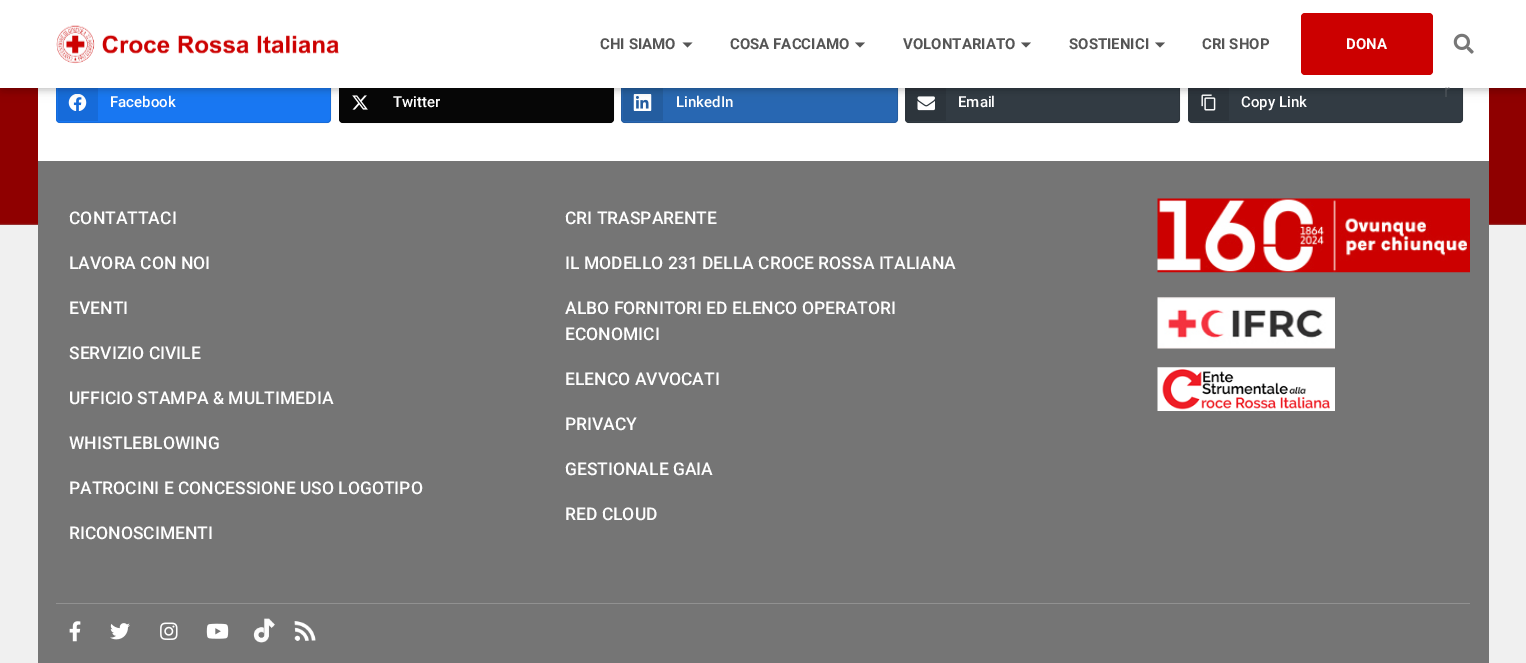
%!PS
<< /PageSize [1526 663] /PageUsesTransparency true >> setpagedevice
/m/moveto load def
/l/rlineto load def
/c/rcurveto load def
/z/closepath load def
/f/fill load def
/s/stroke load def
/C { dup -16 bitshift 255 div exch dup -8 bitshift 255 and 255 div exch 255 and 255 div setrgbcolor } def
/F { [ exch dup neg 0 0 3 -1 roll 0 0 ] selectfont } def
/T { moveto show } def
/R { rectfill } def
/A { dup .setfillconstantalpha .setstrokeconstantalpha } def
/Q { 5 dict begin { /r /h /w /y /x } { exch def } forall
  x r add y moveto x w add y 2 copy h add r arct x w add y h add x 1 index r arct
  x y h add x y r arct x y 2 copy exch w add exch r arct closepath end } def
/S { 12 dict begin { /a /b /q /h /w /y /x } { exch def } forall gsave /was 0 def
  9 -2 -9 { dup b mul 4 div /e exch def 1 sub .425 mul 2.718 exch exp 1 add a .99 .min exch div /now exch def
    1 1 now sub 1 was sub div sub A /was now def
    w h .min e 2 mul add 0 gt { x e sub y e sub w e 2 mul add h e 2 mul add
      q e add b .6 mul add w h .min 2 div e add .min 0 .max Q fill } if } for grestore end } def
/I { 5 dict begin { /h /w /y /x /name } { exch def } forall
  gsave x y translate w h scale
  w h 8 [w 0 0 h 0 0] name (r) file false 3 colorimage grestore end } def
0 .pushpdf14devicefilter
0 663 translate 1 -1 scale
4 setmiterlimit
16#F0F0F0 C
0 0 1526 663 R
16#A8A8A8 C
0 223 1526 2 R
(3.rgb) 0 88 1526 137 I
16#FFFFFF C
38 88 1451 73 R
16#1877F2 C
56 83 275 40 4 Q f
0.1 A
16#000000 C
56.5 83.5 274 39 3.5 Q s
1 A
16#166BDA C
60.5 84 m 37.5 0 l 0 37 l -37.5 0 l -1.5 0 -2.5 -1 -2.5 -2.5 c 0 -32 l 0 -1.5 1 -2.5 2.5 -2.5 c z f
(4.rgb) 68 94 19 17 I
16#060606 C
339 83 275 40 4 Q f
0.1 A
16#000000 C
339.5 83.5 274 39 3.5 Q s
1 A
(5.rgb) 352 95 16 15 I
16#2867B2 C
621 83 277 40 4 Q f
0.1 A
16#000000 C
621.5 83.5 276 39 3.5 Q s
1 A
16#245DA0 C
625.5 84 m 37.5 0 l 0 37 l -37.5 0 l -1.5 0 -2.5 -1 -2.5 -2.5 c 0 -32 l 0 -1.5 1 -2.5 2.5 -2.5 c z f
(6.rgb) 633 94 19 17 I
16#323B43 C
905 83 275 40 4 Q f
0.1 A
16#000000 C
905.5 83.5 274 39 3.5 Q s
908.5 84 m 37.5 0 l 0 37 l -37.5 0 l -1.5 0 -2.5 -1 -2.5 -2.5 c 0 -32 l 0 -1.5 1 -2.5 2.5 -2.5 c z f
1 A
(7.rgb) 917 96 18 15 I
16#323B43 C
1188 83 275 40 4 Q f
0.1 A
16#000000 C
1188.5 83.5 274 39 3.5 Q s
1191.5 84 m 37.5 0 l 0 37 l -37.5 0 l -1.5 0 -2.5 -1 -2.5 -2.5 c 0 -32 l 0 -1.5 1 -2.5 2.5 -2.5 c z f
1 A
(8.rgb) 1201 94 15 17 I
3 8 1521 82 0 3 .1 S
0 1 1526 88 0 6 .12 S
8 9 1511 72 0 6 .42 S
16#FFFFFF C
0 0 1526 88 R
(1.rgb) 56 25 283 39 I
/Roboto-Bold 15 F
16#555555 C
(CHI SIAMO) 600 49 T
682.5 42.5 m 10 0 l -5 5 l z f
(COSA FACCIAMO) 730 49 T
855 42.5 m 10 0 l -5 5 l z f
(VOLONTARIATO) 903 49 T
1021 42.5 m 10 0 l -5 5 l z f
(SOSTIENICI) 1069 49 T
1155 42.5 m 10 0 l -5 5 l z f
(CRI SHOP) 1202 49 T
16#CC0000 C
1301 13 132 62 4 Q f
16#FEFEFE C
(DONA) 1346 49 T
(2.rgb) 1453 33 21 21 I
/Roboto-Regular 17.5 F
16#4A5157 C
(r) 1444 97 T
/Roboto-Medium 15 F
16#FEFEFE C
(Facebook) 110 107 T
(Twitter) 393 107 T
(LinkedIn) 676 107 T
(Email) 958 107 T
(Copy Link) 1241 107 T
16#757575 C
38 161 1451 502 R
/Roboto-Medium 17.5 F
16#FEFEFE C
(CONTATTACI) 69 224 T
(LAVORA CON NOI) 69 269 T
(EVENTI) 69 314 T
(SERVIZIO CIVILE) 69 359 T
(UFFICIO STAMPA & MULTIMEDIA) 69 404 T
(WHISTLEBLOWING) 69 449 T
(PATROCINI E CONCESSIONE USO LOGOTIPO) 69 494 T
(RICONOSCIMENTI) 69 539 T
(CRI TRASPARENTE) 565 224 T
(IL MODELLO 231 DELLA CROCE ROSSA ITALIANA) 565 269 T
(ALBO FORNITORI ED ELENCO OPERATORI) 565 314 T
(ECONOMICI) 565 340 T
(ELENCO AVVOCATI) 565 385 T
(PRIVACY) 565 430 T
(GESTIONALE GAIA) 565 475 T
(RED CLOUD) 565 520 T
(9.rgb) 1157 198 313 75 I
(10.rgb) 1157 297 178 52 I
(11.rgb) 1157 367 178 44 I
16#919191 C
56 603 1414 1 R
(12.rgb) 69 621 12 21 I
(13.rgb) 110 623 20 17 I
(14.rgb) 160 622 18 18 I
(15.rgb) 206 623 23 16 I
(16.rgb) 253 618 22 25 I
(17.rgb) 294 621 22 20 I
.poppdf14devicefilter showpage
